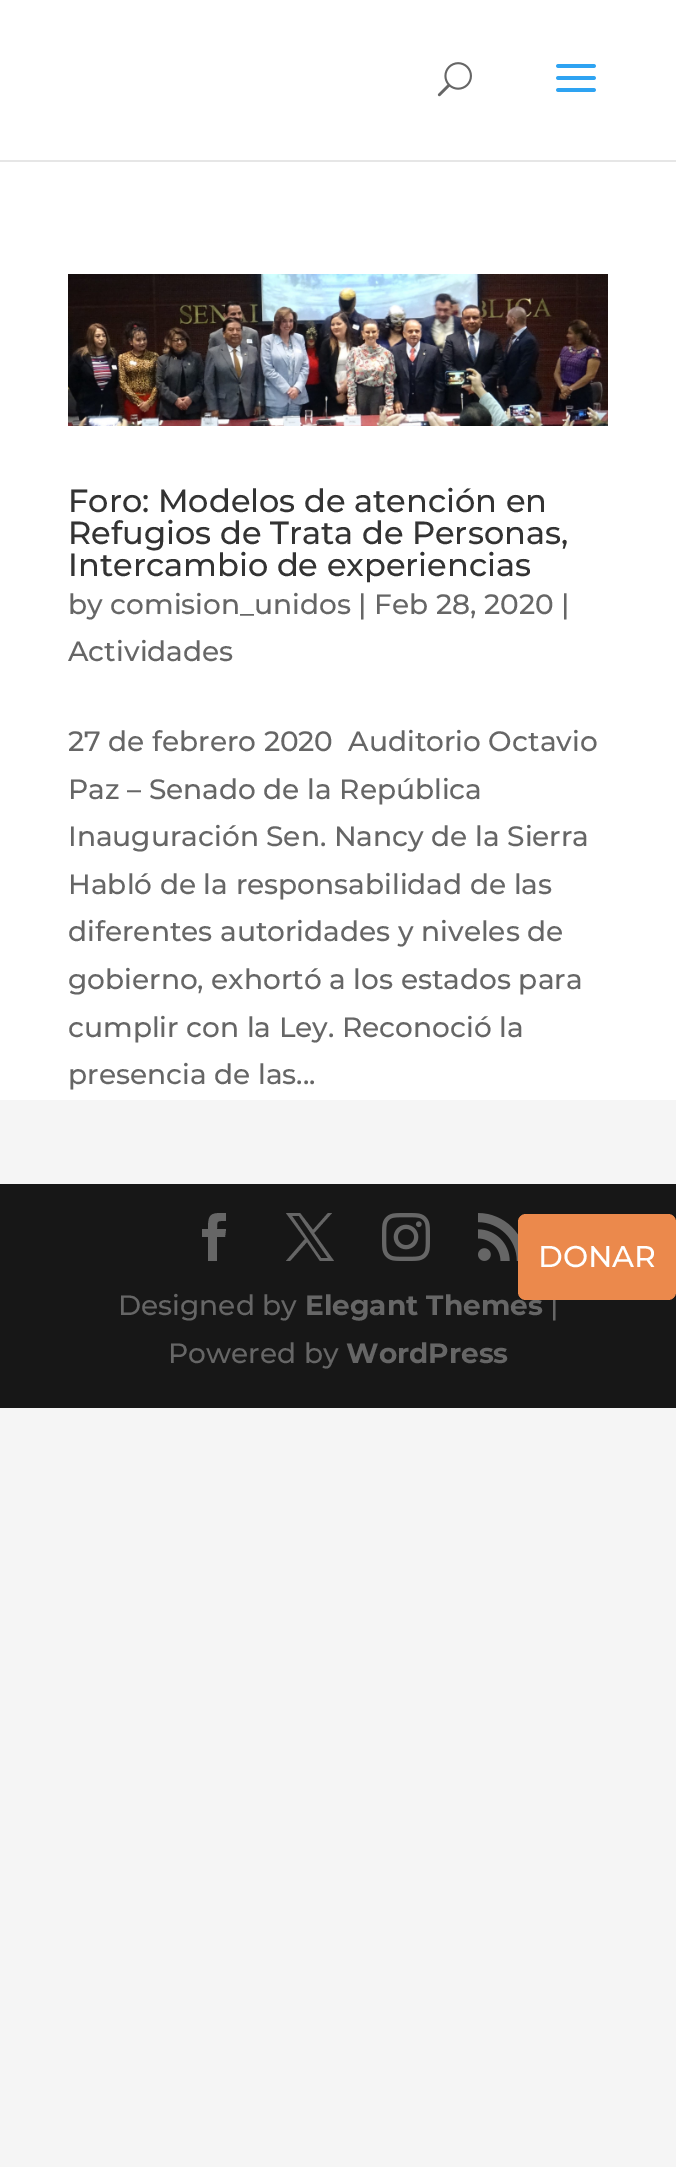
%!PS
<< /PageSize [676 2167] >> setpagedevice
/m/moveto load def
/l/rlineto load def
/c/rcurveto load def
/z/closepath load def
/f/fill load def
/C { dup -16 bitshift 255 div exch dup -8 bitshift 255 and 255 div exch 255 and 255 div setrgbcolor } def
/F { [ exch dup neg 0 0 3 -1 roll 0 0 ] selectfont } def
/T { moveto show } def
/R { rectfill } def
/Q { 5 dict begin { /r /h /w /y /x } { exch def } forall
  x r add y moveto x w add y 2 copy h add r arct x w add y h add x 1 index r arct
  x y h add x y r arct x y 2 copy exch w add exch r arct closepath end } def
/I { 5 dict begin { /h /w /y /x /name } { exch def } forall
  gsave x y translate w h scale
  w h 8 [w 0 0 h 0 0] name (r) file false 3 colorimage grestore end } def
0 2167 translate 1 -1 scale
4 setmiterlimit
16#F5F5F5 C
0 0 676 2167 R
16#E6E6E6 C
0 160 676 2 R
16#FFFFFF C
0 0 676 160 R
(1.rgb) 437 62 35 35 I
(2.rgb) 556 64 40 28 I
0 162 676 938 R
(3.rgb) 68 274 540 152 I
/Montserrat-Thin 32 F
16#333333 C
(Foro: Modelos de atención en) 68 512 T
(Refugios de Trata de Personas,) 68 544 T
(Intercambio de experiencias) 68 576 T
/Montserrat-Thin 28 F
16#666666 C
(by comision_unidos | Feb 28, 2020 |) 68 614 T
(Actividades) 68 661 T
(27 de febrero 2020  Auditorio Octavio) 68 751 T
(Paz – Senado de la República) 68 799 T
(Inauguración Sen. Nancy de la Sierra) 68 846 T
(Habló de la responsabilidad de las) 68 894 T
(diferentes autoridades y niveles de) 68 941 T
(gobierno, exhortó a los estados para) 68 989 T
(cumplir con la Ley. Reconoció la) 68 1037 T
(presencia de las...) 68 1084 T
16#171717 C
0 1184 676 224 R
16#666666 C
208 1261 m 9 0 l 0 -24 l 8 0 l 1 -8 l -9 0 l 0 -9 0 -8 9 -8 c 0 -8 l -15 0 -18 0 -18 16 c -6 0 l 0 8 l 6 0 l z f
286 1213 m 19 26 l -19 22 l 4 0 l 17 -19 l 13 19 l 14 0 l -20 -28 l 18 -20 l -4 0 l -15 17 l -13 -17 l z 292 1216 m 7 0 l 29 42 l -7 0 l z f
(4.rgb) 382 1213 48 48 I
(5.rgb) 478 1213 40 48 I
(Designed by) 118 1315 T
/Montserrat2-Thin 28 F
(Elegant Themes) 305 1315 T
/Montserrat-Thin 28 F
(|) 550 1315 T
(Powered by) 168 1363 T
/Montserrat2-Thin 28 F
(WordPress) 346 1363 T
16#EB894C C
518 1214 158 86 8 Q f
/Montserrat-Thin 30 F
16#FFFFFF C
(DONAR) 538 1267 T
showpage
